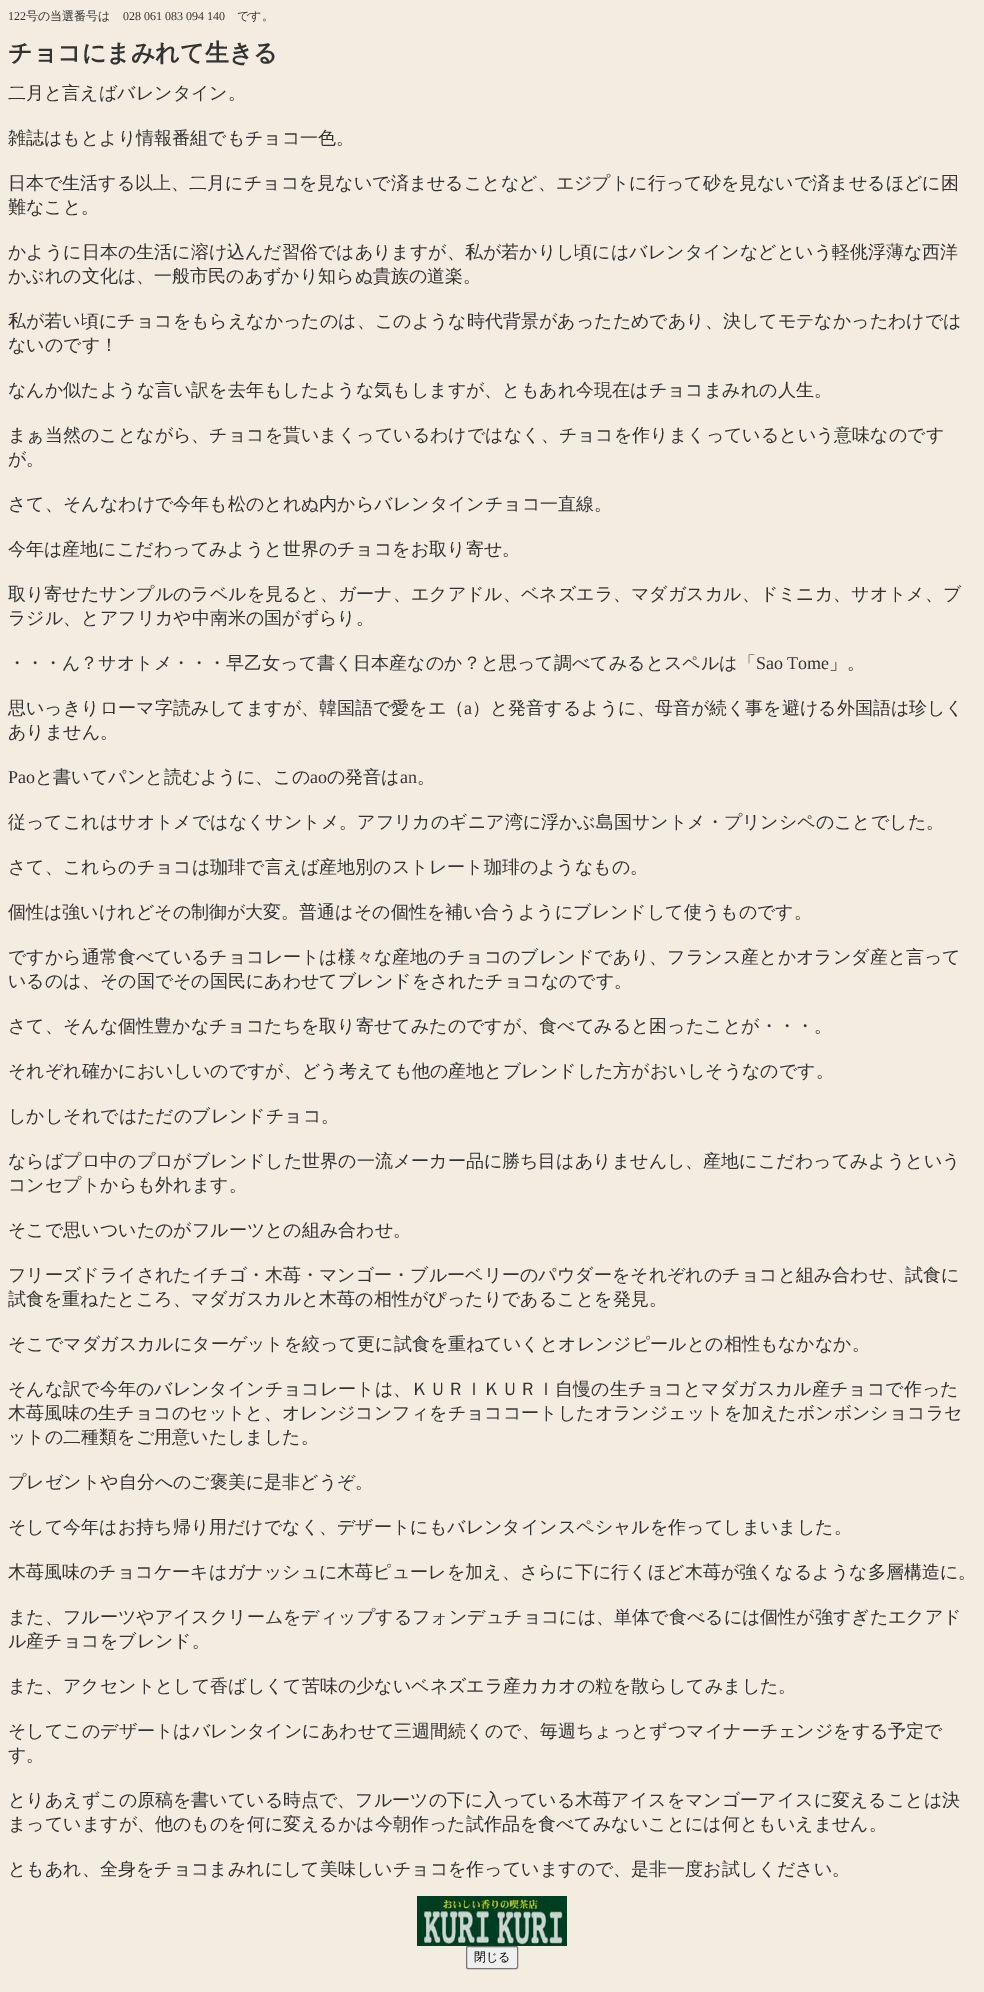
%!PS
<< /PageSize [984 1992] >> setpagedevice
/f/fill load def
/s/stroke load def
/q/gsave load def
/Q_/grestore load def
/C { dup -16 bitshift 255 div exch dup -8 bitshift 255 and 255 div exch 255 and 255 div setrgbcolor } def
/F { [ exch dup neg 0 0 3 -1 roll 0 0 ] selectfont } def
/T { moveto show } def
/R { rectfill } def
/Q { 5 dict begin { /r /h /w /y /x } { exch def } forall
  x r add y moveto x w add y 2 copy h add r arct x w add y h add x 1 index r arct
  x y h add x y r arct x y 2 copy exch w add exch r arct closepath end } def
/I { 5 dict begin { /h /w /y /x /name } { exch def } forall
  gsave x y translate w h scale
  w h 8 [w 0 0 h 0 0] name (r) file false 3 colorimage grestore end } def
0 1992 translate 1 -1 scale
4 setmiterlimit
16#F4ECE1 C
0 0 984 1992 R
/LiberationSerif-Regular 12 F
16#333333 C
(122) 8 20 T
/WenQuanYiZenHei-Medium 12 F
(号の当選番号は) 26 20 T
/LiberationSerif-Regular 12 F
(028 061 083 094 140) 123 20 T
/WenQuanYiZenHei-Medium 12 F
(です。) 237 20 T
/WenQuanYiZenHei-Bold 24 F
(チョコにまみれて生きる) 8 61 T
/WenQuanYiZenHei-Medium 18 F
(二月と言えばバレンタイン。) 8 99 T
(雑誌はもとより情報番組でもチョコ一色。) 8 144 T
(日本で生活する以上、二月にチョコを見ないで済ませることなど、エジプトに行って砂を見ないで済ませるほどに困) 8 189 T
(難なこと。) 8 213 T
(かように日本の生活に溶け込んだ習俗ではありますが、私が若かりし頃にはバレンタインなどという軽佻浮薄な西洋) 8 258 T
(かぶれの文化は、一般市民のあずかり知らぬ貴族の道楽。) 8 282 T
(私が若い頃にチョコをもらえなかったのは、このような時代背景があったためであり、決してモテなかったわけでは) 8 327 T
(ないのです！) 8 351 T
(なんか似たような言い訳を去年もしたような気もしますが、ともあれ今現在はチョコまみれの人生。) 8 396 T
(まぁ当然のことながら、チョコを貰いまくっているわけではなく、チョコを作りまくっているという意味なのです) 8 441 T
(が。) 8 465 T
(さて、そんなわけで今年も松のとれぬ内からバレンタインチョコ一直線。) 8 510 T
(今年は産地にこだわってみようと世界のチョコをお取り寄せ。) 8 555 T
(取り寄せたサンプルのラベルを見ると、ガーナ、エクアドル、ベネズエラ、マダガスカル、ドミニカ、サオトメ、ブ) 8 600 T
(ラジル、とアフリカや中南米の国がずらり。) 8 624 T
(・・・ん？サオトメ・・・早乙女って書く日本産なのか？と思って調べてみるとスペルは「) 8 669 T
/LiberationSerif-Regular 18 F
(Sao Tome) 756 669 T
/WenQuanYiZenHei-Medium 18 F
(」。) 829 669 T
(思いっきりローマ字読みしてますが、韓国語で愛をエ（) 8 714 T
/LiberationSerif-Regular 18 F
(a) 464 714 T
/WenQuanYiZenHei-Medium 18 F
(）と発音するように、母音が続く事を避ける外国語は珍しく) 472 714 T
(ありません。) 8 738 T
/LiberationSerif-Regular 18 F
(Pao) 8 783 T
/WenQuanYiZenHei-Medium 18 F
(と書いてパンと読むように、この) 35 783 T
/LiberationSerif-Regular 18 F
(ao) 310 783 T
/WenQuanYiZenHei-Medium 18 F
(の発音は) 327 783 T
/LiberationSerif-Regular 18 F
(an) 400 783 T
/WenQuanYiZenHei-Medium 18 F
(。) 417 783 T
(従ってこれはサオトメではなくサントメ。アフリカのギニア湾に浮かぶ島国サントメ・プリンシペのことでした。) 8 828 T
(さて、これらのチョコは珈琲で言えば産地別のストレート珈琲のようなもの。) 8 873 T
(個性は強いけれどその制御が大変。普通はその個性を補い合うようにブレンドして使うものです。) 8 918 T
(ですから通常食べているチョコレートは様々な産地のチョコのブレンドであり、フランス産とかオランダ産と言って) 8 963 T
(いるのは、その国でその国民にあわせてブレンドをされたチョコなのです。) 8 987 T
(さて、そんな個性豊かなチョコたちを取り寄せてみたのですが、食べてみると困ったことが・・・。) 8 1032 T
(それぞれ確かにおいしいのですが、どう考えても他の産地とブレンドした方がおいしそうなのです。) 8 1077 T
(しかしそれではただのブレンドチョコ。) 8 1122 T
(ならばプロ中のプロがブレンドした世界の一流メーカー品に勝ち目はありませんし、産地にこだわってみようという) 8 1167 T
(コンセプトからも外れます。) 8 1191 T
(そこで思いついたのがフルーツとの組み合わせ。) 8 1236 T
(フリーズドライされたイチゴ・木苺・マンゴー・ブルーベリーのパウダーをそれぞれのチョコと組み合わせ、試食に) 8 1281 T
(試食を重ねたところ、マダガスカルと木苺の相性がぴったりであることを発見。) 8 1305 T
(そこでマダガスカルにターゲットを絞って更に試食を重ねていくとオレンジピールとの相性もなかなか。) 8 1350 T
(そんな訳で今年のバレンタインチョコレートは、ＫＵＲＩＫＵＲＩ自慢の生チョコとマダガスカル産チョコで作った) 8 1395 T
(木苺風味の生チョコのセットと、オレンジコンフィをチョココートしたオランジェットを加えたボンボンショコラセ) 8 1419 T
(ットの二種類をご用意いたしました。) 8 1443 T
(プレゼントや自分へのご褒美に是非どうぞ。) 8 1488 T
(そして今年はお持ち帰り用だけでなく、デザートにもバレンタインスペシャルを作ってしまいました。) 8 1533 T
(木苺風味のチョコケーキはガナッシュに木苺ピューレを加え、さらに下に行くほど木苺が強くなるような多層構造に。) 8 1578 T
(また、フルーツやアイスクリームをディップするフォンデュチョコには、単体で食べるには個性が強すぎたエクアド) 8 1623 T
(ル産チョコをブレンド。) 8 1647 T
(また、アクセントとして香ばしくて苦味の少ないベネズエラ産カカオの粒を散らしてみました。) 8 1692 T
(そしてこのデザートはバレンタインにあわせて三週間続くので、毎週ちょっとずつマイナーチェンジをする予定で) 8 1737 T
(す。) 8 1761 T
(とりあえずこの原稿を書いている時点で、フルーツの下に入っている木苺アイスをマンゴーアイスに変えることは決) 8 1806 T
(まっていますが、他のものを何に変えるかは今朝作った試作品を食べてみないことには何ともいえません。) 8 1830 T
(ともあれ、全身をチョコまみれにして美味しいチョコを作っていますので、是非一度お試しください。) 8 1875 T
(1.rgb) 417 1896 150 50 I
16#EFEFEF C
466.5 1946.5 51 22 1.5 Q q f Q_
16#767676 C
s
/WenQuanYiZenHei-Medium 12 F
16#000000 C
(閉じる) 474 1961 T
showpage
